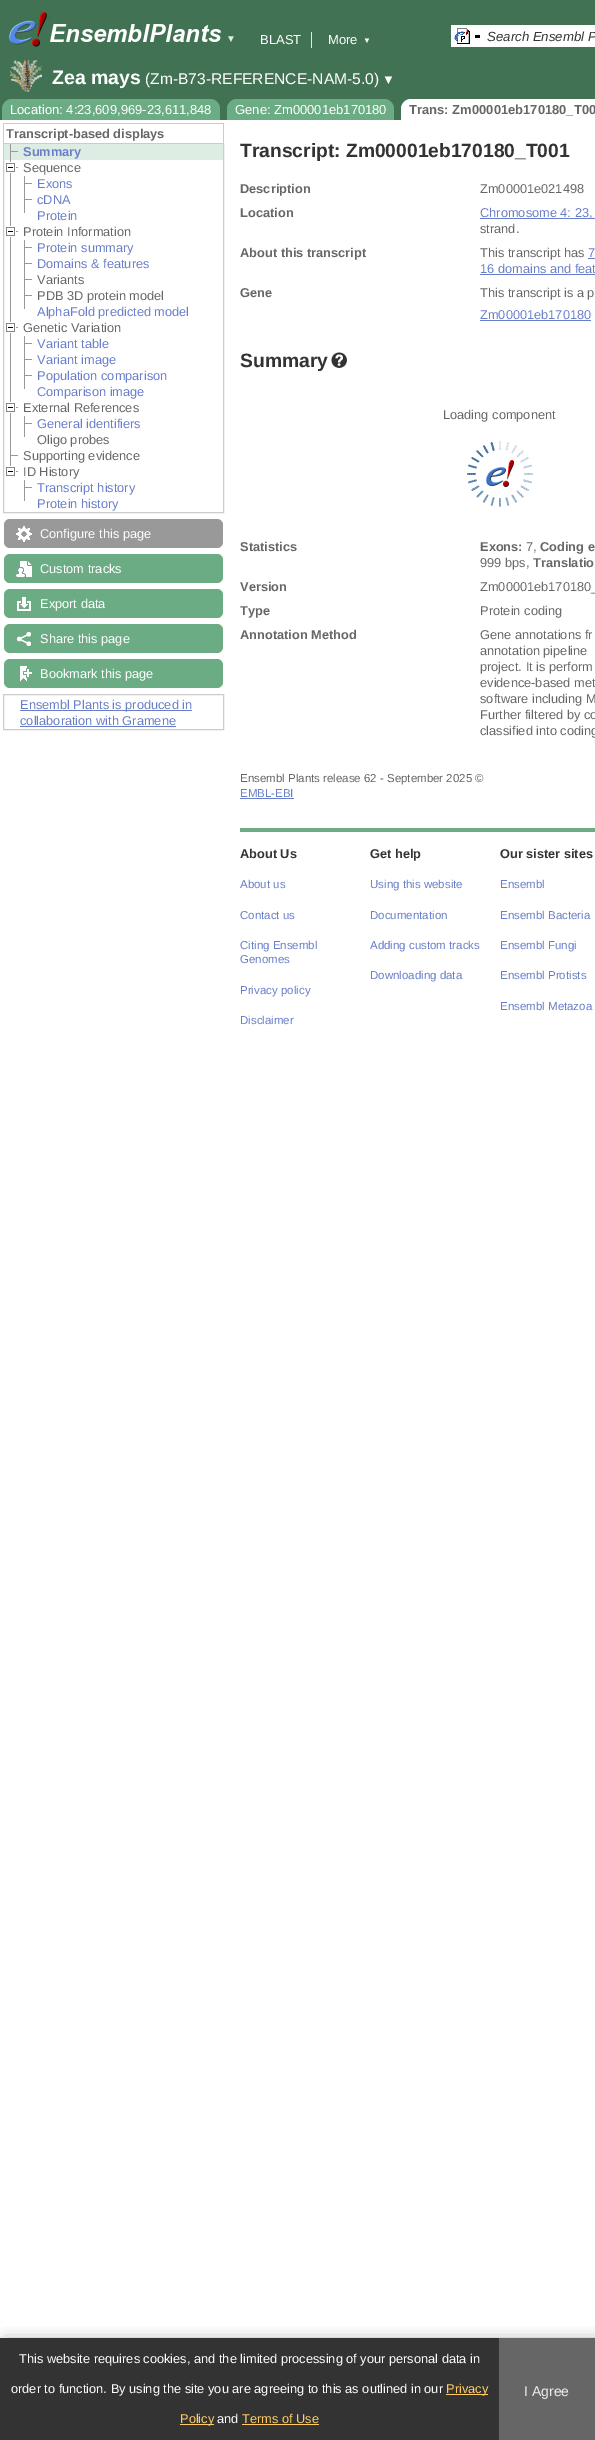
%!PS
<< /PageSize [595 2440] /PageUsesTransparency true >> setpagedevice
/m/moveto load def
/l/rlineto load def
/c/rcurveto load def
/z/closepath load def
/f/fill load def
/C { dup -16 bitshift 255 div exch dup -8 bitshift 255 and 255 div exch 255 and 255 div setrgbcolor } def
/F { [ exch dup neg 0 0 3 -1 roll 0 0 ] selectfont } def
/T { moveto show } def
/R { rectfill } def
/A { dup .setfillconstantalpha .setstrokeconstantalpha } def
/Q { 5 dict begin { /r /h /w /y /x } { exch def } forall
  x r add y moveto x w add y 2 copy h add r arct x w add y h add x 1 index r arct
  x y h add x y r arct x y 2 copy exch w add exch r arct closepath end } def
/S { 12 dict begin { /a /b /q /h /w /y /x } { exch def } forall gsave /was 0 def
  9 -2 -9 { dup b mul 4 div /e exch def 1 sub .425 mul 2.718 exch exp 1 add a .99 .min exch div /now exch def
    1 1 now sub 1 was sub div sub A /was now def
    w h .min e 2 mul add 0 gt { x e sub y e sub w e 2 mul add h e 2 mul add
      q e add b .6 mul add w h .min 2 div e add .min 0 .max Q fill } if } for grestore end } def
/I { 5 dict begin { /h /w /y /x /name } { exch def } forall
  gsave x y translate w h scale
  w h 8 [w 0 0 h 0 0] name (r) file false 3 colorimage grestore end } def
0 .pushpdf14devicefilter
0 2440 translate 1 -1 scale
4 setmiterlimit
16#FFFFFF C
0 0 595 2440 R
16#407253 C
0 0 595 120 R
(1.rgb) 9 12 38 35 I
(2.rgb) 49 15 173 27 I
/LiberationSans-Regular 10 F
16#DEEDE4 C
(▼) 226 42 T
311 32 1 16 R
/LiberationSans-Regular 13 F
16#FFFFFF C
(BLAST) 260 44 T
(More) 328 44 T
/LiberationSans-Regular 8 F
(▼) 363 43 T
451 25 144 22 R
(3.rgb) 454 28 16 16 I
16#000000 C
475 35 5 3 R
/LiberationSans-Italic 13.25 F
16#333333 C
(Search Ensembl P) 487 41 T
(4.rgb) 10 60 32 32 I
/LiberationSans-Bold 19.5 F
16#FFFFFF C
(Zea mays) 52 84 T
/LiberationSans-Regular 15.6 F
(\(Zm-B73-REFERENCE-NAM-5.0\)) 145 84 T
/LiberationSans-Regular 13 F
(▼) 382 84 T
16#6CAC84 C
12 99 m 198 0 l 5.5 0 10 4.5 10 10 c 0 11 l -218 0 l 0 -11 l 0 -5.5 4.5 -10 10 -10 c z f
16#FFFFFF C
(Location: 4:23,609,969-23,611,848) 10 114 T
16#6CAC84 C
237 99 m 147 0 l 5.5 0 10 4.5 10 10 c 0 11 l -167 0 l 0 -11 l 0 -5.5 4.5 -10 10 -10 c z f
16#FFFFFF C
(Gene: Zm00001eb170180) 235 114 T
411 99 m 184 0 l 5.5 0 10 4.5 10 10 c 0 11 l -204 0 l 0 -11 l 0 -5.5 4.5 -10 10 -10 c z f
/LiberationSans-Bold 13 F
16#666666 C
(Trans: Zm00001eb170180_T00) 409 114 T
16#CCCCCC C
3 123 221 1 R
223 123 1 20 R
3 123 1 20 R
/LiberationSans-Bold 12.8 F
16#666666 C
(Transcript-based displays) 6 138 T
16#CCCCCC C
3.5 143.5 220 369 rectstroke
16#DEEDE4 C
4 144 219 16 R
16#999999 C
10 144 1 325 R
11 151 7 1 R
16#697EC9 C
(Summary) 23 156 T
(5.rgb) 6 162 12 11 I
/LiberationSans-Regular 12.8 F
16#666666 C
(Sequence) 23 172 T
16#999999 C
24 176 1 37 R
25 183 7 1 R
16#697EC9 C
(Exons) 37 188 T
16#999999 C
25 199 7 1 R
16#697EC9 C
(cDNA) 37 204 T
(Protein) 37 220 T
(5.rgb) 6 226 12 11 I
16#666666 C
(Protein Information) 23 236 T
16#999999 C
24 240 1 69 R
25 247 7 1 R
16#697EC9 C
(Protein summary) 37 252 T
16#999999 C
25 263 7 1 R
16#697EC9 C
(Domains & features) 37 268 T
16#999999 C
25 279 7 1 R
16#666666 C
(Variants) 37 284 T
16#999999 C
25 295 7 1 R
16#666666 C
(PDB 3D protein model) 37 300 T
16#697EC9 C
(AlphaFold predicted model) 37 316 T
(5.rgb) 6 322 12 11 I
16#666666 C
(Genetic Variation) 23 332 T
16#999999 C
24 336 1 53 R
25 343 7 1 R
16#697EC9 C
(Variant table) 37 348 T
16#999999 C
25 359 7 1 R
16#697EC9 C
(Variant image) 37 364 T
16#999999 C
25 375 7 1 R
16#697EC9 C
(Population comparison) 37 380 T
(Comparison image) 37 396 T
(5.rgb) 6 402 12 11 I
16#666666 C
(External References) 23 412 T
16#999999 C
24 416 1 21 R
25 423 7 1 R
16#697EC9 C
(General identifiers) 37 428 T
16#666666 C
(Oligo probes) 37 444 T
16#999999 C
11 455 7 1 R
16#666666 C
(Supporting evidence) 23 460 T
(6.rgb) 6 466 12 10 I
(ID History) 23 476 T
16#999999 C
24 480 1 21 R
25 487 7 1 R
16#697EC9 C
(Transcript history) 37 492 T
(Protein history) 37 508 T
16#999999 C
4 519 219 29 6 Q f
(7.rgb) 16 526 16 16 I
16#FFFFFF C
(Configure this page) 40 538 T
16#6CAC84 C
4 554 219 29 6 Q f
(8.rgb) 16 561 16 16 I
16#FFFFFF C
(Custom tracks) 40 573 T
16#6CAC84 C
4 589 219 29 6 Q f
(9.rgb) 17 597 14 14 I
16#FFFFFF C
(Export data) 40 608 T
16#6CAC84 C
4 624 219 29 6 Q f
(10.rgb) 17 632 14 14 I
16#FFFFFF C
(Share this page) 40 643 T
16#6CAC84 C
4 659 219 29 6 Q f
(11.rgb) 20 666 12 16 I
16#FFFFFF C
(Bookmark this page) 40 678 T
16#CCCCCC C
3.5 694.5 220 35 rectstroke
16#697EC9 C
20 710 172 1 R
(Ensembl Plants is produced in) 20 709 T
(collaboration with Gramene) 20 725 T
20 726 156 1 R
/LiberationSans-Bold 19.25 F
16#333333 C
(Transcript: Zm00001eb170180_T001) 240 157 T
/LiberationSans-Bold 12.8 F
16#666666 C
(Description) 240 193 T
/LiberationSans-Regular 12.8 F
(Zm00001e021498) 480 193 T
/LiberationSans-Bold 12.8 F
(Location) 240 217 T
16#697EC9 C
480 218 115 1 R
/LiberationSans-Regular 12.8 F
(Chromosome 4: 23,) 480 217 T
16#666666 C
(strand.) 480 233 T
/LiberationSans-Bold 12.8 F
(About this transcript) 240 257 T
/LiberationSans-Regular 12.8 F
(This transcript has) 480 257 T
16#697EC9 C
(7) 588 257 T
588 258 7 1 R
(16 domains and feat) 480 273 T
480 274 115 1 R
/LiberationSans-Bold 12.8 F
16#666666 C
(Gene) 240 297 T
/LiberationSans-Regular 12.8 F
(This transcript is a p) 480 297 T
16#697EC9 C
(Zm00001eb170180) 480 319 T
480 320 111 1 R
/LiberationSans-Bold 19.25 F
16#333333 C
(Summary) 240 367 T
(12.rgb) 331 352 16 16 I
(13.rgb) 467 441 66 66 I
/LiberationSans-Regular 12.8 F
16#666666 C
(Loading component) 443 419 T
/LiberationSans-Bold 12.8 F
(Statistics) 240 551 T
(Exons:) 480 551 T
/LiberationSans-Regular 12.8 F
(7,) 526 551 T
/LiberationSans-Bold 12.8 F
(Coding e) 540 551 T
/LiberationSans-Regular 12.8 F
(999 bps,) 480 567 T
/LiberationSans-Bold 12.8 F
(Translatio) 533 567 T
(Version) 240 591 T
/LiberationSans-Regular 12.8 F
(Zm00001eb170180_) 480 591 T
/LiberationSans-Bold 12.8 F
(Type) 240 615 T
/LiberationSans-Regular 12.8 F
(Protein coding) 480 615 T
/LiberationSans-Bold 12.8 F
(Annotation Method) 240 639 T
/LiberationSans-Regular 12.8 F
(Gene annotations fr) 480 639 T
(annotation pipeline) 480 655 T
(project. It is perform) 480 671 T
(evidence-based met) 480 687 T
(software including M) 480 703 T
(Further filtered by co) 480 719 T
(classified into coding) 480 735 T
/LiberationSans-Regular 11.5 F
(Ensembl Plants release 62 - September 2025 ©) 240 782 T
16#697EC9 C
(EMBL-EBI) 240 797 T
240 798 54 1 R
16#6CAC84 C
240 828 355 4 R
/LiberationSans-Bold 12.75 F
16#333333 C
(About Us) 240 858 T
/LiberationSans-Regular 11.5 F
16#697EC9 C
(About us) 240 888 T
(Contact us) 240 919 T
(Citing Ensembl) 240 949 T
(Genomes) 240 963 T
(Privacy policy) 240 994 T
(Disclaimer) 240 1024 T
/LiberationSans-Bold 12.75 F
16#333333 C
(Get help) 370 858 T
/LiberationSans-Regular 11.5 F
16#697EC9 C
(Using this website) 370 888 T
(Documentation) 370 919 T
(Adding custom tracks) 370 949 T
(Downloading data) 370 979 T
/LiberationSans-Bold 12.75 F
16#333333 C
(Our sister sites) 500 858 T
/LiberationSans-Regular 11.5 F
16#697EC9 C
(Ensembl) 500 888 T
(Ensembl Bacteria) 500 919 T
(Ensembl Fungi) 500 949 T
(Ensembl Protists) 500 979 T
(Ensembl Metazoa) 500 1010 T
16#666666 C
5 2343 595 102 0 7.5 1 S
16#333333 C
0 2338 499 102 R
/LiberationSans-Regular 12.8 F
16#FFFFFF C
(This website requires cookies, and the limited processing of your personal data in) 19 2363 T
(order to function. By using the site you are agreeing to this as outlined in our) 11 2393 T
16#FFCC66 C
446 2394 42 1 R
(Privacy) 446 2393 T
180 2424 34 1 R
(Policy) 180 2423 T
16#FFFFFF C
(and) 217 2423 T
16#FFCC66 C
(Terms of Use) 242 2423 T
242 2424 77 1 R
16#666666 C
499 2338 96 102 R
/LiberationSans-Regular 14 F
16#EEEEEE C
(I Agree) 524 2396 T
.poppdf14devicefilter showpage
